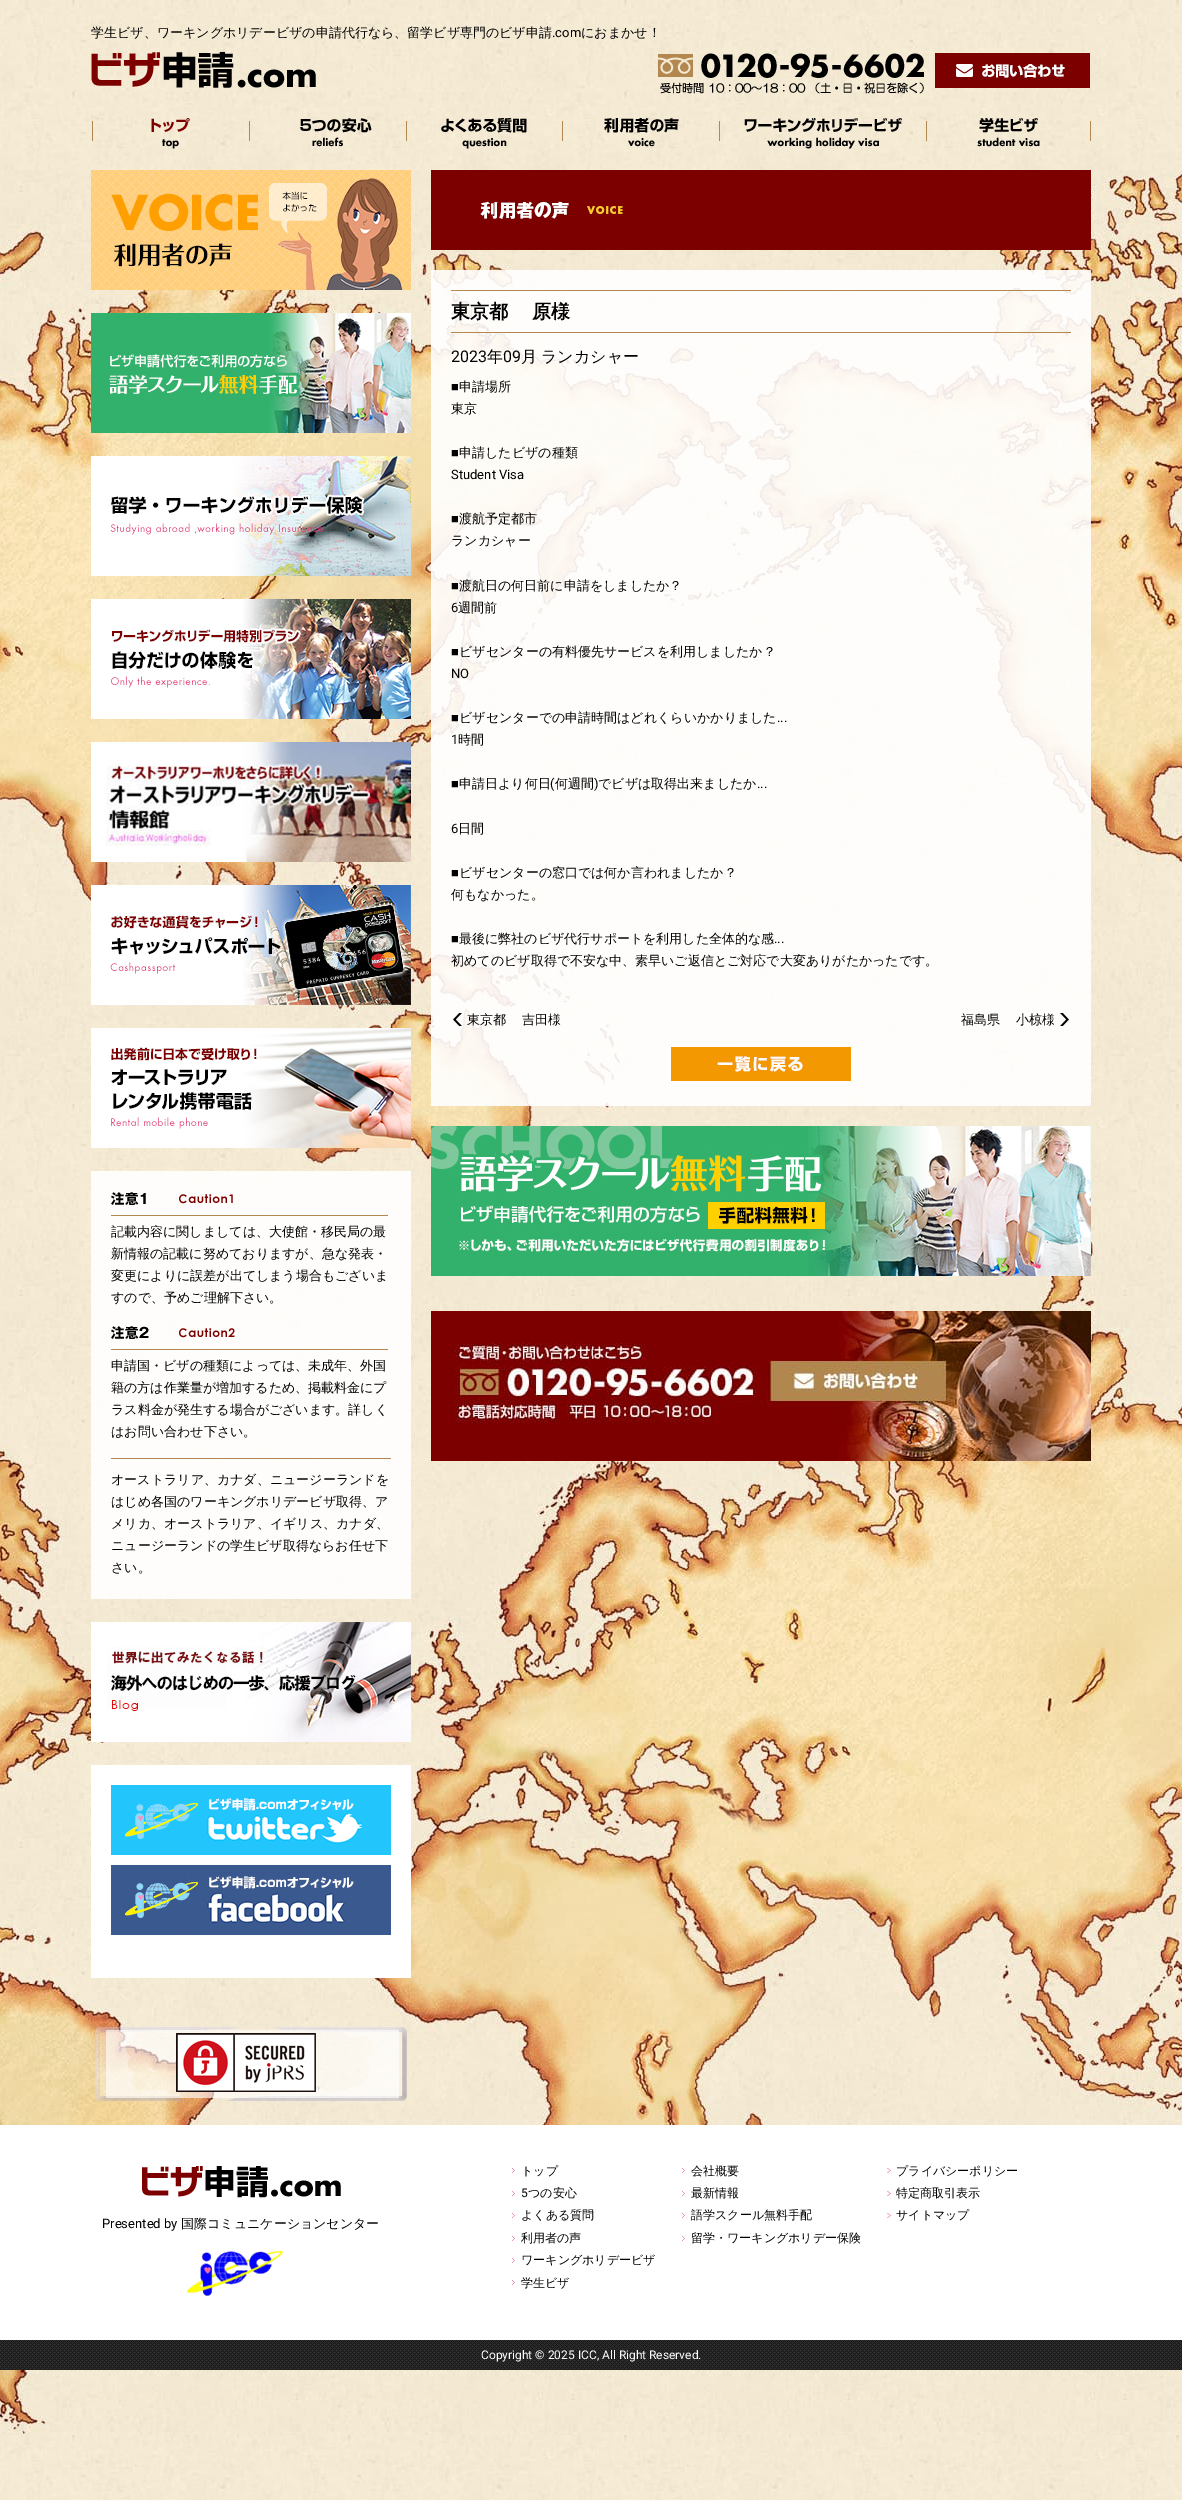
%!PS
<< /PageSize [1182 2500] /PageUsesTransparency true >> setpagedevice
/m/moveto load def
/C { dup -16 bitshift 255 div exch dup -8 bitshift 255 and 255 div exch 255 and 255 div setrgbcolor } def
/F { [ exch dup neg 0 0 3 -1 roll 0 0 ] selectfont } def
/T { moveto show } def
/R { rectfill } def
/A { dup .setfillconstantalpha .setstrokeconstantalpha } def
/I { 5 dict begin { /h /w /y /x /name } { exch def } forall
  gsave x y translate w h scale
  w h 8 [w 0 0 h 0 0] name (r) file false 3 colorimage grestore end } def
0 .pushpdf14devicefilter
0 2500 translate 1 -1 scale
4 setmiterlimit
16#FFFFFF C
0 0 1182 2500 R
(1.rgb) 0 0 1182 2500 I
(2.rgb) 0 92 1182 78 I
/WenQuanYiZenHei-Medium 13 F
16#000000 C
(学生ビザ、ワーキングホリデービザの申請代行なら、留学ビザ専門のビザ申請) 91 37 T
/Roboto-Regular 13 F
(.com) 552 37 T
/WenQuanYiZenHei-Medium 13 F
(におまかせ！) 581 37 T
(3.rgb) 91 52 225 36 I
(4.rgb) 658 53 266 41 I
(5.rgb) 935 53 155 35 I
(6.rgb) 92 118 98 31 I
(7.rgb) 249 118 123 29 I
(8.rgb) 406 118 121 31 I
(9.rgb) 562 118 117 29 I
(10.rgb) 719 118 183 31 I
(11.rgb) 926 118 165 29 I
(12.rgb) 431 170 660 80 I
0.9 A
16#FFFFFF C
431 270 660 836 R
1 A
16#B28850 C
451 290 620 1 R
451 332 620 1 R
/WenQuanYiZenHei-Bold 19 F
16#000000 C
451 318 m -1 0 32 (東京都　 原様) widthshow
/Roboto-Regular 16 F
(2023) 451 362 T
/WenQuanYiZenHei-Medium 16 F
(年) 487 362 T
/Roboto-Regular 16 F
(09) 503 362 T
/WenQuanYiZenHei-Medium 16 F
(月) 521 362 T
(ランカシャー) 541 362 T
/LiberationSans-Regular 13 F
(■) 451 391 T
/WenQuanYiZenHei-Medium 13 F
(申請場所) 459 391 T
(東京) 451 413 T
/LiberationSans-Regular 13 F
(■) 451 457 T
/WenQuanYiZenHei-Medium 13 F
(申請したビザの種類) 459 457 T
/Roboto-Regular 13 F
(Student Visa) 451 479 T
/LiberationSans-Regular 13 F
(■) 451 523 T
/WenQuanYiZenHei-Medium 13 F
(渡航予定都市) 459 523 T
(ランカシャー) 451 545 T
/LiberationSans-Regular 13 F
(■) 451 590 T
/WenQuanYiZenHei-Medium 13 F
(渡航日の何日前に申請をしましたか？) 459 590 T
/Roboto-Regular 13 F
(6) 451 612 T
/WenQuanYiZenHei-Medium 13 F
(週間前) 458 612 T
/LiberationSans-Regular 13 F
(■) 451 656 T
/WenQuanYiZenHei-Medium 13 F
(ビザセンターの有料優先サービスを利用しましたか？) 459 656 T
/Roboto-Regular 13 F
(NO) 451 678 T
/LiberationSans-Regular 13 F
(■) 451 722 T
/WenQuanYiZenHei-Medium 13 F
(ビザセンターでの申請時間はどれくらいかかりました) 459 722 T
/Roboto-Regular 13 F
(...) 777 722 T
(1) 451 744 T
/WenQuanYiZenHei-Medium 13 F
(時間) 458 744 T
/LiberationSans-Regular 13 F
(■) 451 788 T
/WenQuanYiZenHei-Medium 13 F
(申請日より何日) 459 788 T
/Roboto-Regular 13 F
(\() 550 788 T
/WenQuanYiZenHei-Medium 13 F
(何週間) 555 788 T
/Roboto-Regular 13 F
(\)) 594 788 T
/WenQuanYiZenHei-Medium 13 F
(でビザは取得出来ましたか) 598 788 T
/Roboto-Regular 13 F
(...) 757 788 T
(6) 451 833 T
/WenQuanYiZenHei-Medium 13 F
(日間) 458 833 T
/LiberationSans-Regular 13 F
(■) 451 877 T
/WenQuanYiZenHei-Medium 13 F
(ビザセンターの窓口では何か言われましたか？) 459 877 T
(何もなかった。) 451 899 T
/LiberationSans-Regular 13 F
(■) 451 943 T
/WenQuanYiZenHei-Medium 13 F
(最後に弊社のビザ代行サポートを利用した全体的な感) 459 943 T
/Roboto-Regular 13 F
(...) 774 943 T
/WenQuanYiZenHei-Medium 13 F
(初めてのビザ取得で不安な中、素早いご返信とご対応で大変ありがたかったです。) 451 965 T
(13.rgb) 453 1013 9 13 I
467 1024 m -1 0 32 (東京都　 吉田様) widthshow
961 1024 m -1 0 32 (福島県　 小椋様) widthshow
(14.rgb) 1060 1013 9 13 I
(15.rgb) 671 1047 180 34 I
(16.rgb) 431 1126 660 150 I
(17.rgb) 431 1311 660 150 I
(18.rgb) 91 170 320 120 I
(19.rgb) 91 313 320 120 I
16#FFFFFF C
91 456 20 120 R
(20.rgb) 111 456 300 120 I
91 599 20 120 R
(21.rgb) 111 599 300 120 I
91 742 15 120 R
(22.rgb) 106 742 305 120 I
91 885 19 120 R
(23.rgb) 110 885 301 120 I
91 1028 20 120 R
(24.rgb) 111 1028 300 120 I
0.9 A
91 1171 320 428 R
1 A
(25.rgb) 111 1192 277 24 I
16#000000 C
(記載内容に関しましては、大使館・移民局の最) 111 1236 T
(新情報の記載に努めておりますが、急な発表・) 111 1258 T
(変更によりに誤差が出てしまう場合もございま) 111 1280 T
(すので、予めご理解下さい。) 111 1302 T
(26.rgb) 111 1326 277 24 I
(申請国・ビザの種類によっては、未成年、外国) 111 1370 T
(籍の方は作業量が増加するため、掲載料金にプ) 111 1392 T
(ラス料金が発生する場合がございます。詳しく) 111 1414 T
(はお問い合わせ下さい。) 111 1436 T
16#B28850 C
111 1458 280 1 R
16#000000 C
(オーストラリア、カナダ、ニュージーランドを) 111 1484 T
(はじめ各国のワーキングホリデービザ取得、ア) 111 1506 T
(メリカ、オーストラリア、イギリス、カナダ、) 111 1528 T
(ニュージーランドの学生ビザ取得ならお任せ下) 111 1550 T
(さい。) 111 1572 T
16#FFFFFF C
91 1622 16 120 R
(27.rgb) 107 1622 304 120 I
91 1765 320 213 R
(28.rgb) 111 1785 280 70 I
(29.rgb) 111 1865 280 70 I
(30.rgb) 95 2027 312 74 I
0 2125 1182 215 R
(31.rgb) 142 2166 199 32 I
/Roboto-Regular 13 F
16#000000 C
(Presented by) 102 2228 T
/WenQuanYiZenHei-Medium 13 F
(国際コミュニケーションセンター) 181 2228 T
(32.rgb) 187 2250 96 46 I
(33.rgb) 512 2168 3 5 I
/WenQuanYiZenHei-Medium 12 F
(トップ) 521 2175 T
(33.rgb) 512 2191 3 5 I
/Roboto-Regular 12 F
(5) 521 2197 T
/WenQuanYiZenHei-Medium 12 F
(つの安心) 528 2197 T
(33.rgb) 512 2213 3 5 I
(よくある質問) 521 2219 T
(33.rgb) 512 2236 3 5 I
(利用者の声) 521 2242 T
(33.rgb) 512 2258 3 5 I
(ワーキングホリデービザ) 521 2264 T
(33.rgb) 512 2280 3 5 I
(学生ビザ) 521 2287 T
(33.rgb) 682 2168 3 5 I
(会社概要) 691 2175 T
(33.rgb) 682 2191 3 5 I
(最新情報) 691 2197 T
(33.rgb) 682 2213 3 5 I
(語学スクール無料手配) 691 2219 T
(33.rgb) 682 2236 3 5 I
(留学・ワーキングホリデー保険) 691 2242 T
(34.rgb) 887 2168 4 5 I
(プライバシーポリシー) 896 2175 T
(34.rgb) 887 2191 4 5 I
(特定商取引表示) 896 2197 T
(34.rgb) 887 2213 4 5 I
(サイトマップ) 896 2219 T
(35.rgb) 0 2340 1182 30 I
/Roboto-Regular 12 F
16#FFFFFF C
(Copyright © 2025 ICC, All Right Reserved.) 481 2359 T
.poppdf14devicefilter showpage
